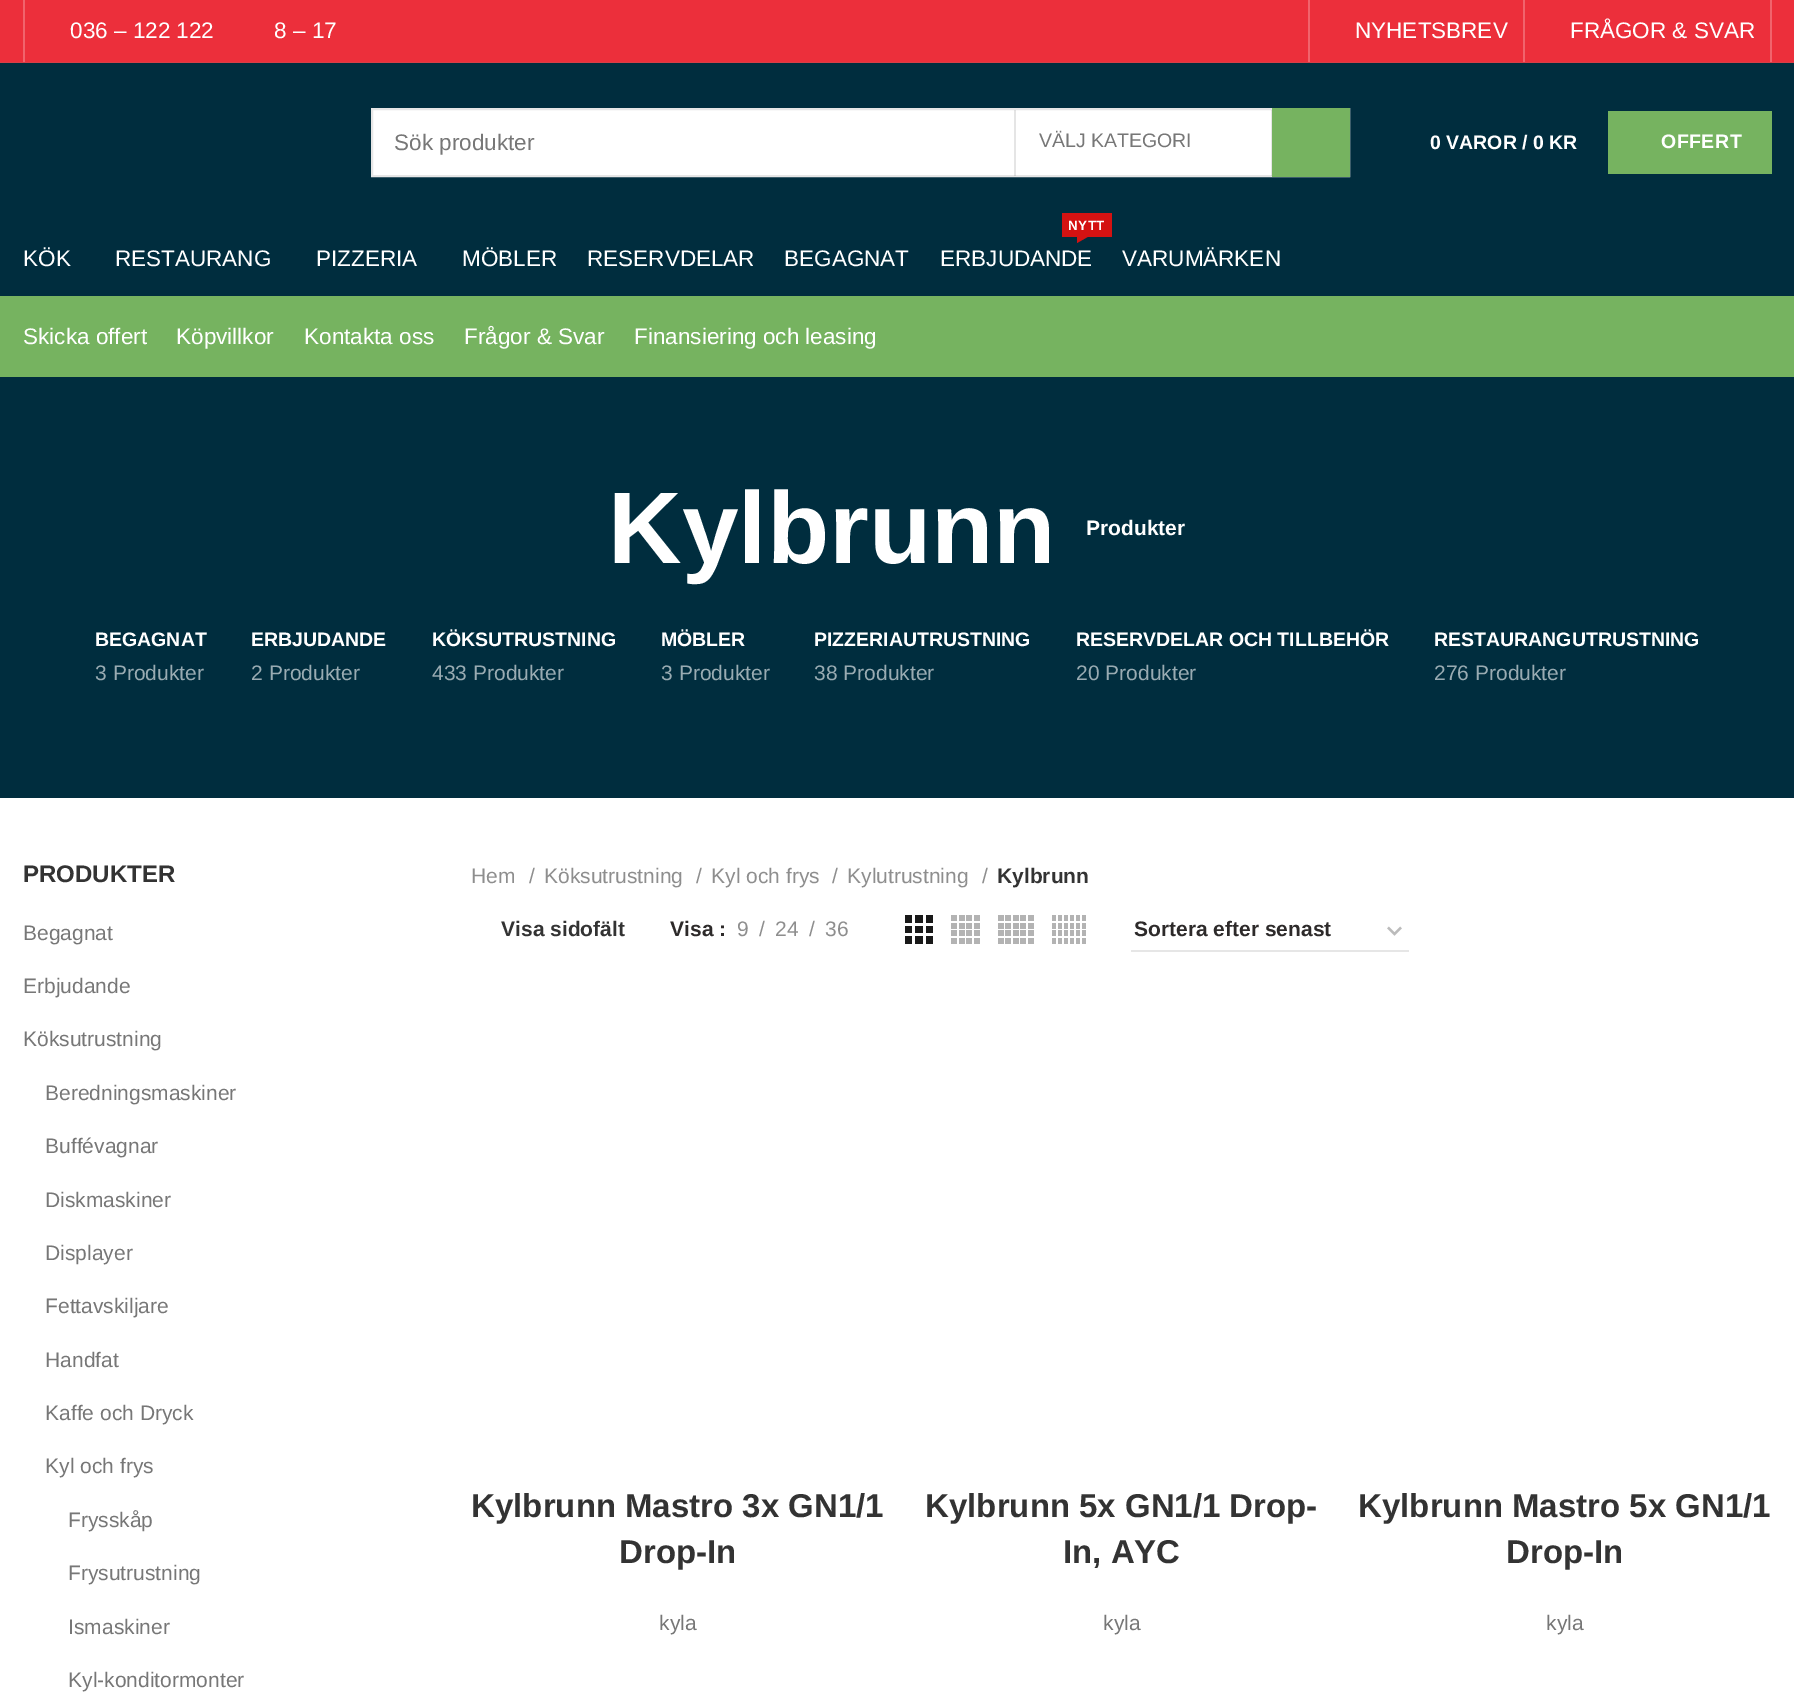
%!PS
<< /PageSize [1794 1702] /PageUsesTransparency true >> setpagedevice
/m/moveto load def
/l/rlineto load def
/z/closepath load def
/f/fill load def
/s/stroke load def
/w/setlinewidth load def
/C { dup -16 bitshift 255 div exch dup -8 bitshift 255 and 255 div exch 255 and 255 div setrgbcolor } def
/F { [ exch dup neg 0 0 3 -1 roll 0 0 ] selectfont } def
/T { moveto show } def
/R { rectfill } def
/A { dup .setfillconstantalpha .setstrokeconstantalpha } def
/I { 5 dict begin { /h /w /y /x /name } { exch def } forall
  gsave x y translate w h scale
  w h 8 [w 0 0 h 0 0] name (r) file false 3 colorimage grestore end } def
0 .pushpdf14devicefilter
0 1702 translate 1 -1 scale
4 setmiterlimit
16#FFFFFF C
0 0 1794 1702 R
16#EC2F3B C
0 0 1794 62 R
16#D73F47 C
0 62 1794 1 R
16#F1636C C
23 0 2 62 R
/LiberationSans-Regular 22.5 F
16#FFFFFF C
(036 – 122 122) 70 38 T
(8 – 17) 274 38 T
16#F1636C C
1308 0 2 62 R
16#FFFFFF C
(NYHETSBREV) 1355 38 T
16#F1636C C
1523 0 2 62 R
16#FFFFFF C
(FRÅGOR & SVAR) 1570 38 T
16#F1636C C
1770 0 2 62 R
16#002D3E C
0 63 1794 233 R
16#FFFFFF C
373 110 899 65 R
16#E6E6E6 C
2 w
372 109 977 67 rectstroke
16#777777 C
(Sök produkter) 394 150 T
0.1 A
16#000000 C
1271 110 1 66 R
1014 110 2 66 R
/LiberationSans-Regular 19.5 F
1 A
16#777777 C
(VÄLJ KATEGORI) 1039 147 T
16#76B360 C
1272 108 78 69 R
/LiberationSans-Bold 19.5 F
16#FFFFFF C
(0 VAROR / 0 KR) 1430 149 T
16#76B360 C
1608 111 164 63 R
16#FFFFFF C
1661 148 m .5 0 (OFFERT) ashow
/LiberationSans-Regular 22.5 F
(KÖK) 23 266 T
(RESTAURANG) 115 266 T
(PIZZERIA) 316 266 T
(MÖBLER) 462 266 T
(RESERVDELAR) 587 266 T
(BEGAGNAT) 784 266 T
16#D41212 C
1062 213 50 24 R
/LiberationSans-Bold 13.5 F
16#FFFFFF C
1068 230 m .5 0 (NYTT) ashow
16#D41212 C
1077 237 m 10.5 0 l -10.5 6 l z f
/LiberationSans-Regular 22.5 F
16#FFFFFF C
(ERBJUDANDE) 940 266 T
(VARUMÄRKEN) 1122 266 T
16#76B360 C
0 296 1794 81 R
16#FFFFFF C
(Skicka offert) 23 344 T
(Köpvillkor) 176 344 T
(Kontakta oss) 304 344 T
(Frågor & Svar) 464 344 T
(Finansiering och leasing) 634 344 T
16#002D3E C
0 377 1794 421 R
/LiberationSans-Bold 102 F
16#FFFFFF C
(Kylbrunn) 608 563 T
/LiberationSans-Bold 21 F
(Produkter) 1086 535 T
/LiberationSans-Bold 19.5 F
(BEGAGNAT) 95 646 T
/LiberationSans-Regular 21 F
16#99ABB2 C
(3 Produkter) 95 680 T
/LiberationSans-Bold 19.5 F
16#FFFFFF C
(ERBJUDANDE) 251 646 T
/LiberationSans-Regular 21 F
16#99ABB2 C
(2 Produkter) 251 680 T
/LiberationSans-Bold 19.5 F
16#FFFFFF C
(KÖKSUTRUSTNING) 432 646 T
/LiberationSans-Regular 21 F
16#99ABB2 C
(433 Produkter) 432 680 T
/LiberationSans-Bold 19.5 F
16#FFFFFF C
(MÖBLER) 661 646 T
/LiberationSans-Regular 21 F
16#99ABB2 C
(3 Produkter) 661 680 T
/LiberationSans-Bold 19.5 F
16#FFFFFF C
(PIZZERIAUTRUSTNING) 814 646 T
/LiberationSans-Regular 21 F
16#99ABB2 C
(38 Produkter) 814 680 T
/LiberationSans-Bold 19.5 F
16#FFFFFF C
(RESERVDELAR OCH TILLBEHÖR) 1076 646 T
/LiberationSans-Regular 21 F
16#99ABB2 C
(20 Produkter) 1076 680 T
/LiberationSans-Bold 19.5 F
16#FFFFFF C
(RESTAURANGUTRUSTNING) 1434 646 T
/LiberationSans-Regular 21 F
16#99ABB2 C
(276 Produkter) 1434 680 T
/LiberationSans-Bold 24 F
16#333333 C
(PRODUKTER) 23 882 T
/LiberationSans-Regular 21 F
16#777777 C
(Begagnat) 23 940 T
(Erbjudande) 23 993 T
(Köksutrustning) 23 1046 T
(Beredningsmaskiner) 45 1100 T
(Buffévagnar) 45 1153 T
(Diskmaskiner) 45 1207 T
(Displayer) 45 1260 T
(Fettavskiljare) 45 1313 T
(Handfat) 45 1367 T
(Kaffe och Dryck) 45 1420 T
(Kyl och frys) 45 1473 T
(Frysskåp) 68 1527 T
(Frysutrustning) 68 1580 T
(Ismaskiner) 68 1634 T
(Kyl-konditormonter) 68 1687 T
16#8E8E8E C
(Hem) 471 883 T
(/) 529 883 T
(Köksutrustning) 544 883 T
(/) 696 883 T
(Kyl och frys) 711 883 T
(/) 832 883 T
(Kylutrustning) 847 883 T
(/) 982 883 T
/LiberationSans-Bold 21 F
16#333333 C
(Kylbrunn) 997 883 T
(Visa sidofält) 501 936 T
16#2D2A2A C
(Visa :) 670 936 T
/LiberationSans-Regular 21 F
16#8E8E8E C
(9) 737 936 T
(/) 759 936 T
(24) 775 936 T
(/) 809 936 T
(36) 825 936 T
(1.rgb) 905 915 28 29 I
(2.rgb) 951 915 29 29 I
(3.rgb) 998 915 36 29 I
(4.rgb) 1052 915 34 29 I
16#BBBBBB C
2.2 w
1388 927.5 m 6.5 6.5 l 6.5 -6.5 l s
16#E6E6E6 C
1131 950 278 2 R
/LiberationSans-Bold 21 F
16#2D2A2A C
(Sortera efter senast) 1134 936 T
/LiberationSans-Bold 33 F
16#333333 C
(Kylbrunn Mastro 3x GN1/1) 471 1517 T
(Drop-In) 619 1563 T
/LiberationSans-Regular 21 F
16#777777 C
(kyla) 659 1630 T
/LiberationSans-Bold 33 F
16#333333 C
(Kylbrunn 5x GN1/1 Drop-) 925 1517 T
(In, AYC) 1063 1563 T
/LiberationSans-Regular 21 F
16#777777 C
(kyla) 1103 1630 T
/LiberationSans-Bold 33 F
16#333333 C
(Kylbrunn Mastro 5x GN1/1) 1358 1517 T
(Drop-In) 1506 1563 T
/LiberationSans-Regular 21 F
16#777777 C
(kyla) 1546 1630 T
.poppdf14devicefilter showpage
